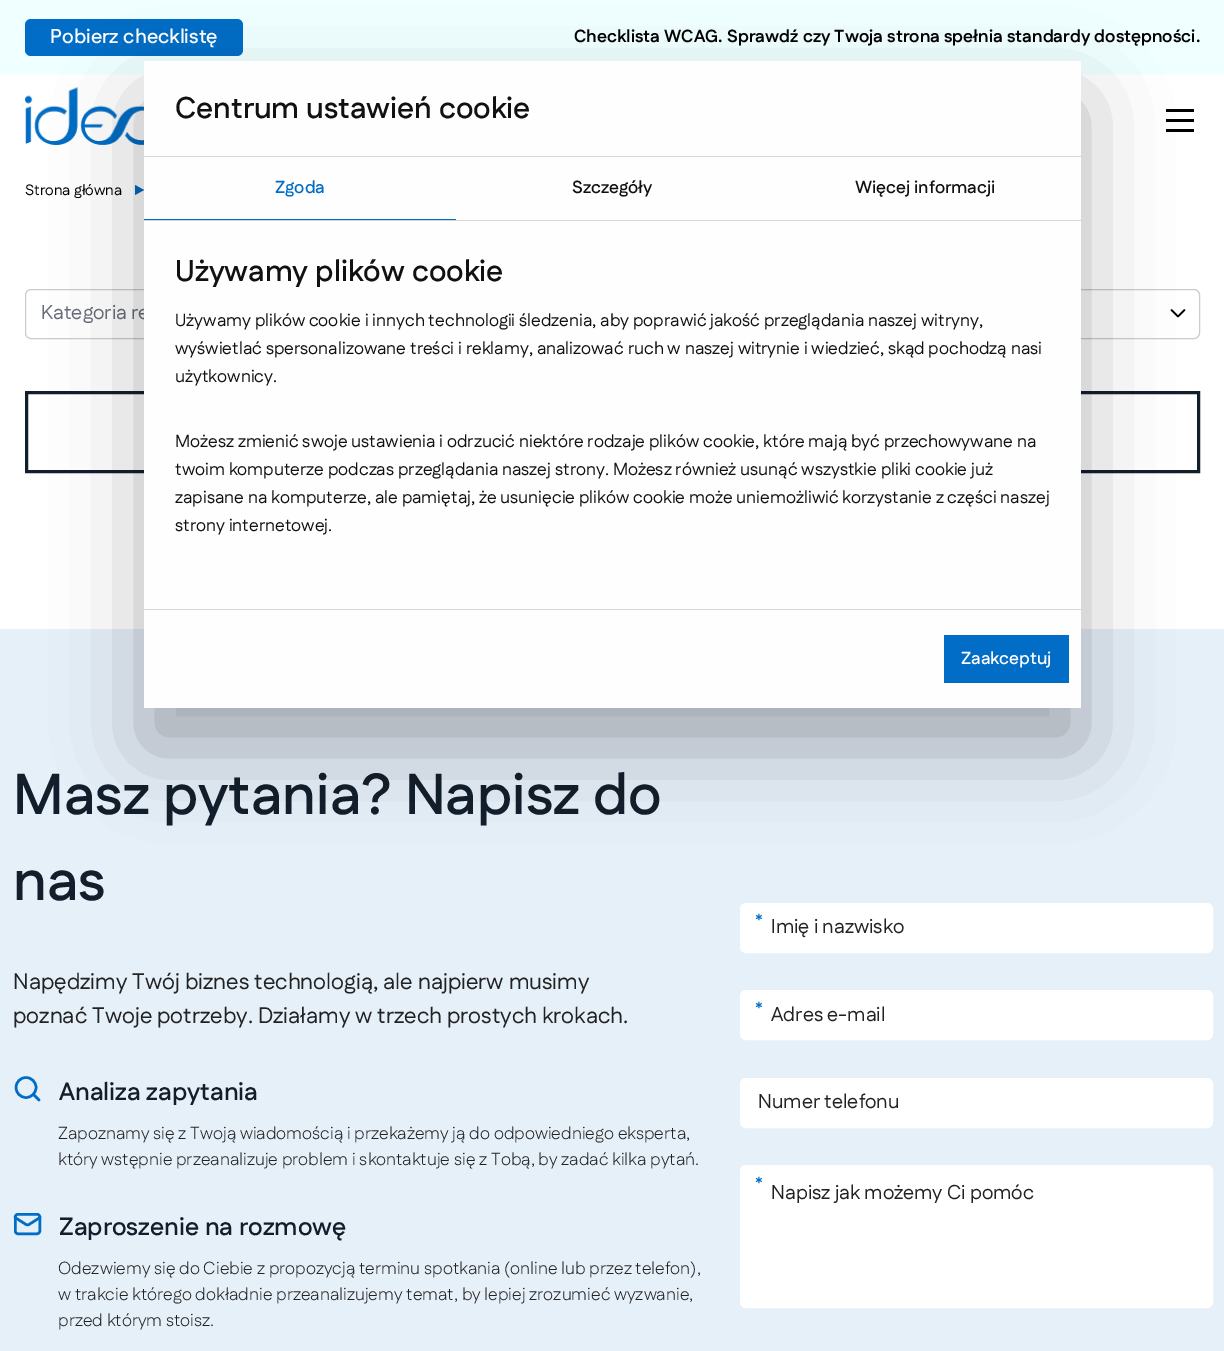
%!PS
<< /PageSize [1224 1351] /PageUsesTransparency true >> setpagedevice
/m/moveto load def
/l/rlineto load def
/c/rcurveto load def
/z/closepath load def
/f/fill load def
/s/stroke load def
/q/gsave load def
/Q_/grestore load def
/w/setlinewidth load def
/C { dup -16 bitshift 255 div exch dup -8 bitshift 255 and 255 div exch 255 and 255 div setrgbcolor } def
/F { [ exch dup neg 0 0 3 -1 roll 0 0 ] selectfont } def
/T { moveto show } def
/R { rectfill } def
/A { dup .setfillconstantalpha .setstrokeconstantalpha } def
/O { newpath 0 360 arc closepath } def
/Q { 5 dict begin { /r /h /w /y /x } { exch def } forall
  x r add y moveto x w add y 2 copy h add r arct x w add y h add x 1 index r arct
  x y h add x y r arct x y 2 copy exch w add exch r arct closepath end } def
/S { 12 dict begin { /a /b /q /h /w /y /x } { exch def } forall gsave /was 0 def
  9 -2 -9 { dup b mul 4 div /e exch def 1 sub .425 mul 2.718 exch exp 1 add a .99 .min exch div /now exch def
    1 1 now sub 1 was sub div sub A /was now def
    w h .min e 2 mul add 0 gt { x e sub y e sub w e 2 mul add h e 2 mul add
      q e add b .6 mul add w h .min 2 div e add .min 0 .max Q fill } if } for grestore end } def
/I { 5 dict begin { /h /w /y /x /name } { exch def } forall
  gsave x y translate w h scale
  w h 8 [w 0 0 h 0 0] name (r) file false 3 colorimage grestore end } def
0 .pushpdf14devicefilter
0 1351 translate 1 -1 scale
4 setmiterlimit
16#FFFFFF C
0 0 1224 1351 R
16#F0FFFF C
0 0 1224 75 R
16#016DC6 C
25 19 218 37 6 Q f
/Fustat-SemiBold 20 F
16#FFFFFF C
(Pobierz checklistę) 50 43 T
/Fustat-Bold 17.5 F
16#010101 C
(Checklista WCAG. Sprawdź czy Twoja strona spełnia standardy dostępności.) 574 42 T
(1.rgb) 25 87 119 58 I
16#000000 C
1166 119 28 3 R
1166 109 28 3 R
1166 129 28 3 R
/Fustat-Regular 15 F
16#010101 C
(Strona główna) 25 195 T
16#016DC6 C
135 195 m 0 -10 l 9 5 l z f
16#CCCCCC C
25.5 289.5 374 49 5.5 Q s
/Fustat-Regular 20 F
16#666C7A C
(Kategoria re) 41 319 T
16#CCCCCC C
825.5 289.5 374 49 5.5 Q s
16#010101 C
1.7 w
1 setlinecap
1 setlinejoin
1184.5 310 m -6.5 6.5 l -6.5 -6.5 l s
16#121E2C C
3 w
0 setlinecap
0 setlinejoin
26.5 392.5 1172 79 rectstroke
16#E6F0F9 C
0 629 1224 722 R
/Fustat-SemiBold 57.5 F
16#121E2C C
(Masz pytania? Napisz do) 13 814 T
(nas) 13 900 T
/Fustat-Regular 22.5 F
16#222222 C
(Napędzimy Twój biznes technologią, ale najpierw musimy) 13 989 T
(poznać Twoje potrzeby. Działamy w trzech prostych krokach.) 13 1023 T
16#016DC6 C
2.5 w
1 setlinecap
1 setlinejoin
39 1100 m -5.5 -5.5 l s
0 setlinecap
0 setlinejoin
26 1087.5 10 O s
/Fustat-SemiBold 25 F
16#121E2C C
(Analiza zapytania) 59 1100 T
/Fustat-Light 17.5 F
16#222222 C
(Zapoznamy się z Twoją wiadomością i przekażemy ją do odpowiedniego eksperta,) 58 1139 T
(który wstępnie przeanalizuje problem i skontaktuje się z Tobą, by zadać kilka pytań.) 58 1165 T
16#016DC6 C
1 setlinecap
1 setlinejoin
40 1217.5 m -11 7 l -1 .5 -2 .5 -3 0 c -11 -7 l s
0 setlinecap
0 setlinejoin
15.25 1214.25 24.5 19.5 2.75 Q s
/Fustat-SemiBold 25 F
16#121E2C C
(Zaproszenie na rozmowę) 59 1235 T
/Fustat-Light 17.5 F
16#222222 C
(Odezwiemy się do Ciebie z propozycją terminu spotkania \(online lub przez telefon\),) 58 1274 T
(w trakcie którego dokładnie przeanalizujemy temat, by lepiej zrozumieć wyzwanie,) 58 1300 T
(przed którym stoisz.) 58 1326 T
16#FFFFFF C
740.5 903.5 472 49 5.5 Q q f Q_
1 w
s
/Fustat-Regular 17.5 F
16#016DC6 C
(*) 755 926 T
/Fustat-Regular 20 F
16#222222 C
(Imię i nazwisko) 771 933 T
16#FFFFFF C
740.5 990.5 472 49 5.5 Q q f Q_
s
/Fustat-Regular 17.5 F
16#016DC6 C
(*) 755 1014 T
/Fustat-Regular 20 F
16#222222 C
(Adres e-mail) 771 1021 T
16#FFFFFF C
740.5 1078.5 472 49 5.5 Q q f Q_
s
16#222222 C
(Numer telefonu) 758 1108 T
16#FFFFFF C
740.5 1165.5 472 142 5.5 Q q f Q_
s
/Fustat-Regular 17.5 F
16#016DC6 C
(*) 755 1189 T
/Fustat-Regular 20 F
16#222222 C
(Napisz jak możemy Ci pomóc) 771 1199 T
16#000000 C
144 101 937 647 0 42.5 .3 S
16#FEFEFE C
144 61 937 647 R
/Fustat-SemiBold 30 F
16#111111 C
(Centrum ustawień cookie) 175 118 T
16#D6D6D6 C
144 156 937 1 R
144 220 937 1 R
16#016DC6 C
144 219 312 1 R
/Fustat-SemiBold 17.5 F
(Zgoda) 275 193 T
16#111111 C
(Szczegóły) 572 193 T
(Więcej informacji) 855 193 T
16#D6D6D6 C
144 609 937 1 R
/Fustat-SemiBold 30 F
16#111111 C
(Używamy plików cookie) 175 281 T
/Fustat-Regular 17.5 F
(Używamy plików cookie i innych technologii śledzenia, aby poprawić jakość przeglądania naszej witryny,) 175 326 T
(wyświetlać spersonalizowane treści i reklamy, analizować ruch w naszej witrynie i wiedzieć, skąd pochodzą nasi) 175 354 T
(użytkownicy.) 175 382 T
(Możesz zmienić swoje ustawienia i odrzucić niektóre rodzaje plików cookie, które mają być przechowywane na) 175 447 T
(twoim komputerze podczas przeglądania naszej strony. Możesz również usunąć wszystkie pliki cookie już) 175 475 T
(zapisane na komputerze, ale pamiętaj, że usunięcie plików cookie może uniemożliwić korzystanie z części naszej) 175 503 T
(strony internetowej.) 175 531 T
16#016DC6 C
944 635 125 48 R
/Fustat-SemiBold 17.5 F
16#FFFFFF C
(Zaakceptuj) 961 664 T
.poppdf14devicefilter showpage
